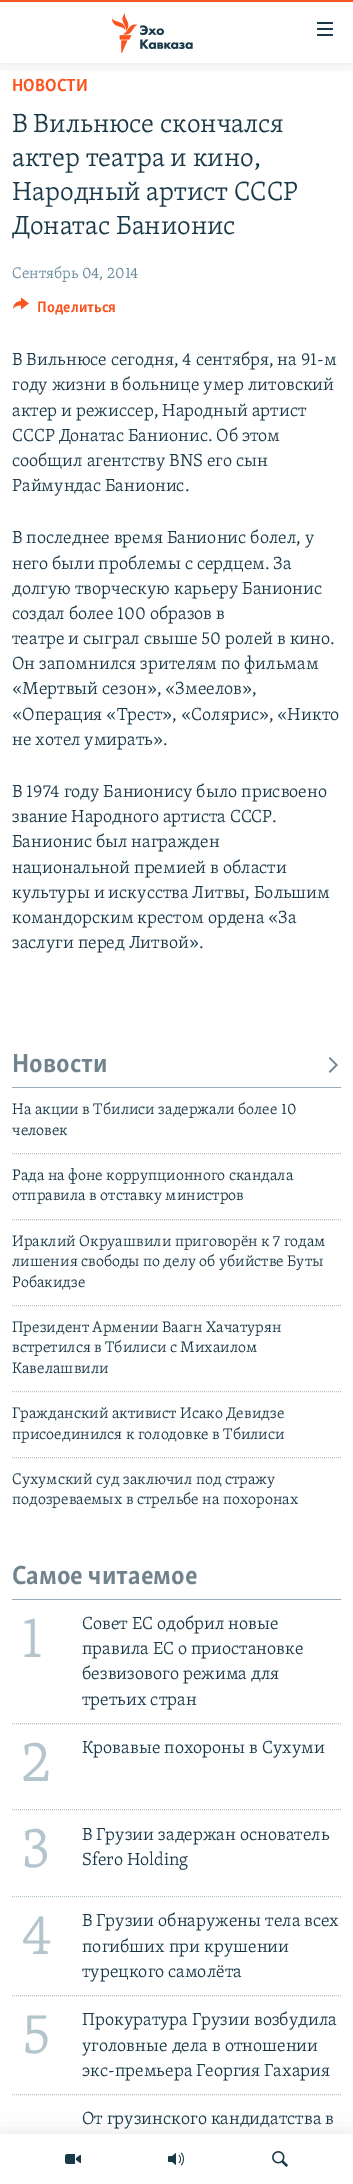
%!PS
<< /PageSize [353 2184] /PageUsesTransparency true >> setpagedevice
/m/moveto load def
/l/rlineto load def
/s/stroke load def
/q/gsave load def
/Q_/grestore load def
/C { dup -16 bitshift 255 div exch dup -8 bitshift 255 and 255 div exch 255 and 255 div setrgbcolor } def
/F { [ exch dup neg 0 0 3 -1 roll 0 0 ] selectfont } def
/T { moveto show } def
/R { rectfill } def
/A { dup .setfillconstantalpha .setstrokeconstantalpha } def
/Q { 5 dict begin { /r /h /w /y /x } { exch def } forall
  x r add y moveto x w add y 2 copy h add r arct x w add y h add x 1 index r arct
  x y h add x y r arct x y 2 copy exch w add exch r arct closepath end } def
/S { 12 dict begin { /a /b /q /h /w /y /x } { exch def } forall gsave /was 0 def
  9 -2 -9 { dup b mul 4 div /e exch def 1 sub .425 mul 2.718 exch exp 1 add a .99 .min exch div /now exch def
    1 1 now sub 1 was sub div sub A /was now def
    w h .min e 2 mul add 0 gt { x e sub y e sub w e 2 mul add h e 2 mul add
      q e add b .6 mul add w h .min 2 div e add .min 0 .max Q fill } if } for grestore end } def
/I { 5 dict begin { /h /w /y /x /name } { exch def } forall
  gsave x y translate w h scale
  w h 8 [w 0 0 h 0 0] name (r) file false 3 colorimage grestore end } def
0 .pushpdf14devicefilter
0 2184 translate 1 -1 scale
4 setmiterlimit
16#FFFFFF C
0 0 353 2184 R
q
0 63 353 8 rectclip
16#000000 C
0 0 353 63 0 10 .1 S
Q_
16#FA5420 C
0 0 353 2 R
(1.rgb) 112 13 81 40 I
(2.rgb) 317 22 16 14 I
16#000000 C
0 2134 353 50 0 10 .1 S
16#FFFFFF C
0 2134 353 50 R
(3.rgb) 65 2154 16 10 I
(4.rgb) 168 2152 16 14 I
(5.rgb) 272 2151 16 16 I
/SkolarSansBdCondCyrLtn-Bold 18 F
16#FA5420 C
(НОВОСТИ) 12 91 T
/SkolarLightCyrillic-Light 27 F
16#1A3948 C
(В Вильнюсе скончался) 12 132 T
(актер театра и кино,) 12 166 T
(Народный артист СССР) 12 200 T
(Донатас Банионис) 12 234 T
/SkolarLightCyrillic-Light 15.75 F
16#678A9B C
(Сентябрь 04, 2014) 12 278 T
(6.rgb) 13 297 16 13 I
/SkolarSansBdCondCyrLtn-Bold 15.75 F
16#FA5420 C
(Поделиться) 37 312 T
/SkolarLightCyrillic-Light 18 F
16#1A3948 C
(В Вильнюсе сегодня, 4 сентября, на 91-м) 12 365 T
(году жизни в больнице умер литовский) 12 390 T
(актер и режиссер, Народный артист) 12 416 T
(СССР Донатас Банионис. Об этом) 12 441 T
(сообщил агентству BNS его сын) 12 466 T
(Раймундас Банионис.) 12 491 T
(В последнее время Банионис болел, у) 12 543 T
(него были проблемы с сердцем. За) 12 569 T
(долгую творческую карьеру Банионис) 12 594 T
(создал более 100 образов в) 12 619 T
(театре и сыграл свыше 50 ролей в кино.) 12 644 T
(Он запомнился зрителям по фильмам) 12 669 T
(«Мертвый сезон», «Змеелов»,) 12 694 T
(«Операция «Трест», «Солярис», «Никто) 12 720 T
(не хотел умирать».) 12 745 T
(В 1974 году Банионису было присвоено) 12 797 T
(звание Народного артиста СССР.) 12 822 T
(Банионис был награжден) 12 847 T
(национальной премией в области) 12 873 T
(культуры и искусства Литвы, Большим) 12 898 T
(командорским крестом ордена «За) 12 923 T
(заслуги перед Литвой».) 12 948 T
16#95ADB9 C
12 1087 329 1 R
/SkolarSansBdCondCyrLtn-Bold 27 F
16#71838D C
(Новости) 12 1072 T
(7.rgb) 328 1057 10 16 I
/SkolarLightCyrillic-Light 15.75 F
16#1A3948 C
(На акции в Тбилиси задержали более 10) 12 1114 T
(человек) 12 1135 T
16#B4C5CD C
[1 1] 0 setdash
12 1153.5 m 329 0 l s
16#1A3948 C
(Рада на фоне коррупционного скандала) 12 1180 T
(отправила в отставку министров) 12 1200 T
16#B4C5CD C
12 1219.5 m 329 0 l s
16#1A3948 C
(Ираклий Окруашвили приговорён к 7 годам) 12 1246 T
(лишения свободы по делу об убийстве Буты) 12 1266 T
(Робакидзе) 12 1287 T
16#B4C5CD C
12 1305.5 m 329 0 l s
16#1A3948 C
(Президент Армении Ваагн Хачатурян) 12 1332 T
(встретился в Тбилиси с Михаилом) 12 1352 T
(Кавелашвили) 12 1373 T
16#B4C5CD C
12 1391.5 m 329 0 l s
16#1A3948 C
(Гражданский активист Исако Девидзе) 12 1418 T
(присоединился к голодовке в Тбилиси) 12 1439 T
16#B4C5CD C
12 1457.5 m 329 0 l s
16#1A3948 C
(Сухумский суд заключил под стражу) 12 1484 T
(подозреваемых в стрельбе на похоронах) 12 1504 T
16#95ADB9 C
12 1599 329 1 R
/SkolarSansBdCondCyrLtn-Bold 27 F
16#71838D C
(Самое читаемое) 12 1584 T
/SkolarLightCyrillic-Light 59 F
16#B4C5CD C
(1) 21 1657 T
/SkolarLightCyrillic-Light 18 F
16#1A3948 C
(Совет ЕС одобрил новые) 82 1629 T
(правила ЕС о приостановке) 82 1654 T
(безвизового режима для) 82 1679 T
(третьих стран) 82 1705 T
16#B4C5CD C
12 1723.5 m 329 0 l s
/SkolarLightCyrillic-Light 59 F
(2) 21 1781 T
/SkolarLightCyrillic-Light 18 F
16#1A3948 C
(Кровавые похороны в Сухуми) 82 1753 T
16#B4C5CD C
12 1809.5 m 329 0 l s
/SkolarLightCyrillic-Light 59 F
(3) 21 1867 T
/SkolarLightCyrillic-Light 18 F
16#1A3948 C
(В Грузии задержан основатель) 82 1840 T
(Sfero Holding) 82 1865 T
16#B4C5CD C
12 1896.5 m 329 0 l s
/SkolarLightCyrillic-Light 59 F
(4) 21 1954 T
/SkolarLightCyrillic-Light 18 F
16#1A3948 C
(В Грузии обнаружены тела всех) 82 1926 T
(погибших при крушении) 82 1952 T
(турецкого самолёта) 82 1977 T
16#B4C5CD C
12 1995.5 m 329 0 l s
/SkolarLightCyrillic-Light 59 F
(5) 21 2053 T
/SkolarLightCyrillic-Light 18 F
16#1A3948 C
(Прокуратура Грузии возбудила) 82 2025 T
(уголовные дела в отношении) 82 2051 T
(экс-премьера Георгия Гахария) 82 2076 T
16#B4C5CD C
12 2094.5 m 329 0 l s
16#1A3948 C
(От грузинского кандидатства в) 82 2124 T
.poppdf14devicefilter showpage
